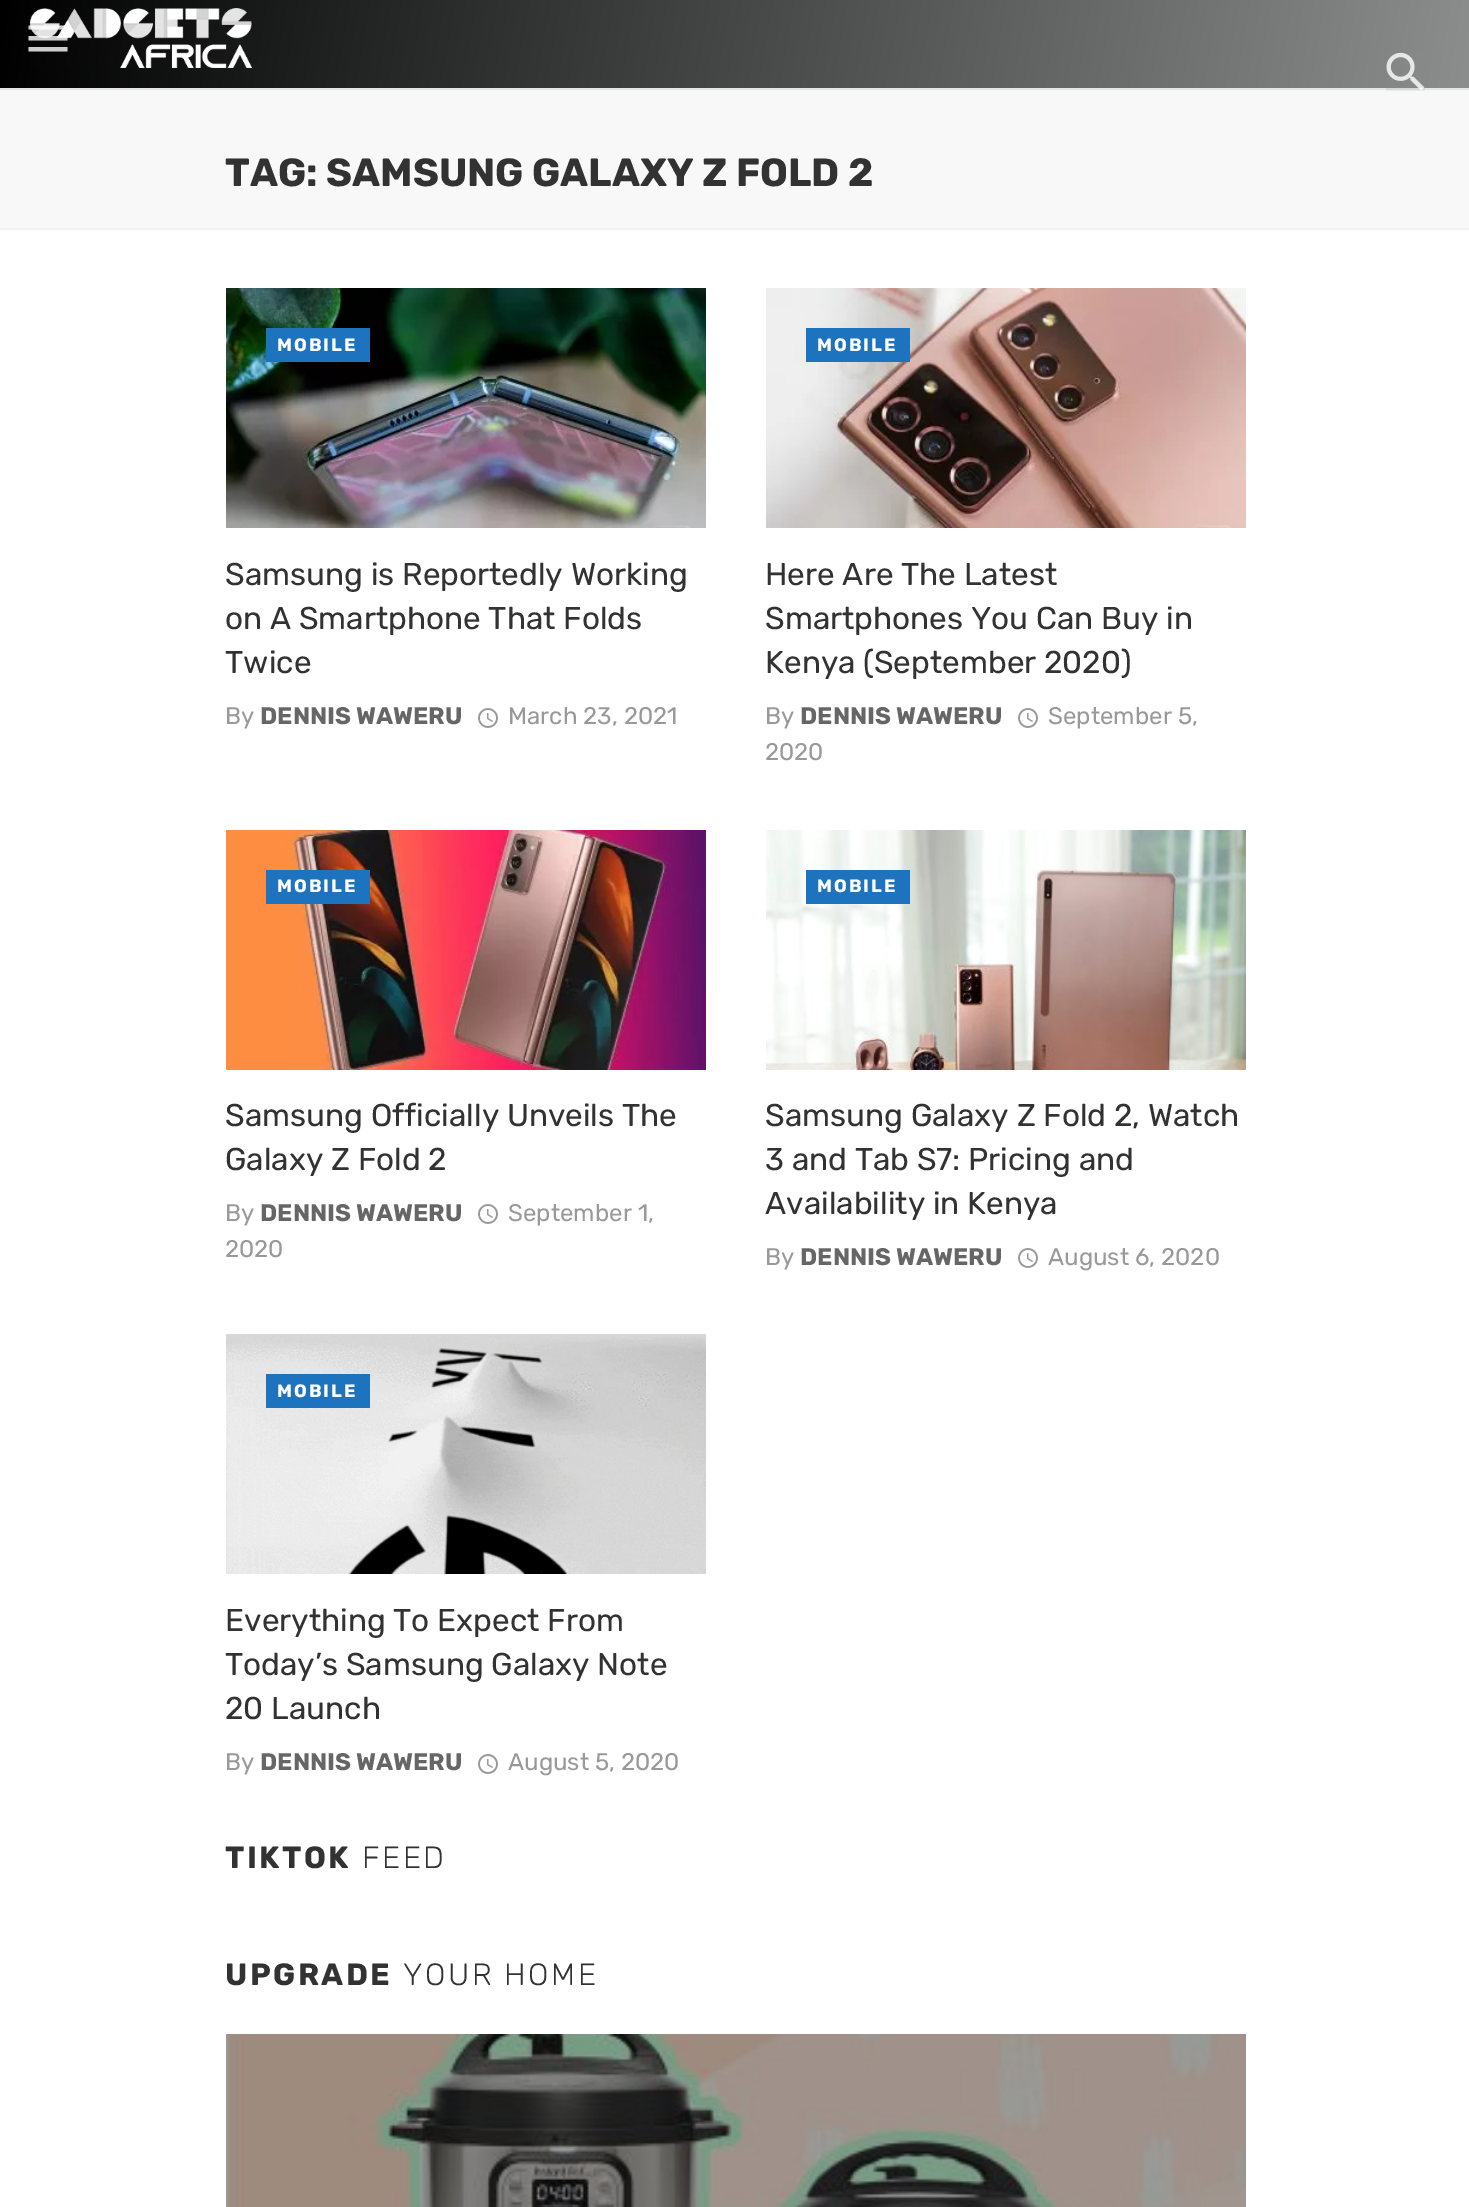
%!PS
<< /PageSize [1469 2207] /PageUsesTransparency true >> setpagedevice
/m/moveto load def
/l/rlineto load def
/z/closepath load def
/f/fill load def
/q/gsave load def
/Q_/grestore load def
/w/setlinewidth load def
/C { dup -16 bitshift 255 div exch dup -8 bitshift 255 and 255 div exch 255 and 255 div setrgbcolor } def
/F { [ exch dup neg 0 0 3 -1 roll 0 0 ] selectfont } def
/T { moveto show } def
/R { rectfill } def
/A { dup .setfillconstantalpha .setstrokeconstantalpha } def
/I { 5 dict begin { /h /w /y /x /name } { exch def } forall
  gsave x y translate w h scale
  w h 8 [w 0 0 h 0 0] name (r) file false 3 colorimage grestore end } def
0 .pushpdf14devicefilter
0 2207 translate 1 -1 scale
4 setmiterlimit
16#FFFFFF C
0 0 1469 2207 R
16#F2F2F2 C
2 w
-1 87 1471 142 rectstroke
16#EEEEEE C
0 88 1469 2 R
0.04 A
16#000000 C
0 88 1469 2 R
1 A
q 0 0 m 1469 0 l 0 88 l -1469 0 l z clip newpath
<< /ShadingType 2 /ColorSpace /DeviceRGB /Coords [14 -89 1456 165] /Extend [true true] /Function << /FunctionType 2 /Domain [0 1] /C0 [0 0 0] /C1 [.549 .557 .557] /N 1 >> >> shfill Q_
(1.rgb) 30 8 222 60 I
0.8 A
16#FFFFFF C
28.5 25.5 m 39 0 l 0 4 l -39 0 l z 28.5 40.5 m 0 -4.5 l 39 0 l 0 4.5 l z 28.5 51.5 m 0 -4.5 l 39 0 l 0 4.5 l z f
1 A
16#F8F8F8 C
0 90 1469 138 R
(2.rgb) 1386 52 39 39 I
/Rubik-Bold 39.25 F
16#323232 C
(TAG: SAMSUNG GALAXY Z FOLD 2) 225 186 T
(3.rgb) 226 288 480 240 I
16#1E73BE C
266 328 104 34 R
/Rubik-Bold 18 F
16#FFFFFF C
277 351 m 2 0 (MOBILE) ashow
/Rubik-Regular 31.5 F
16#323232 C
(Samsung is Reportedly Working) 225 585 T
(on A Smartphone That Folds) 225 629 T
(Twice) 225 673 T
/Rubik-Regular 24 F
16#999999 C
(By) 225 724 T
/Rubik-Bold 24 F
16#666666 C
(DENNIS WAWERU) 260 724 T
(4.rgb) 478 708 20 20 I
/Rubik-Regular 24 F
16#999999 C
(March 23, 2021) 508 724 T
(5.rgb) 766 288 480 240 I
16#1E73BE C
806 328 104 34 R
/Rubik-Bold 18 F
16#FFFFFF C
817 351 m 2 0 (MOBILE) ashow
/Rubik-Regular 31.5 F
16#323232 C
(Here Are The Latest) 765 585 T
(Smartphones You Can Buy in) 765 629 T
(Kenya \(September 2020\)) 765 673 T
(4.rgb) 1018 708 20 20 I
/Rubik-Regular 24 F
16#999999 C
(September 5,) 1048 724 T
(2020) 765 760 T
(By) 765 724 T
/Rubik-Bold 24 F
16#666666 C
(DENNIS WAWERU) 800 724 T
(6.rgb) 226 830 480 240 I
16#1E73BE C
266 870 104 34 R
/Rubik-Bold 18 F
16#FFFFFF C
277 892 m 2 0 (MOBILE) ashow
/Rubik-Regular 31.5 F
16#323232 C
(Samsung Officially Unveils The) 225 1126 T
(Galaxy Z Fold 2) 225 1170 T
(4.rgb) 478 1204 20 20 I
/Rubik-Regular 24 F
16#999999 C
(September 1,) 508 1221 T
(2020) 225 1257 T
(By) 225 1221 T
/Rubik-Bold 24 F
16#666666 C
(DENNIS WAWERU) 260 1221 T
(7.rgb) 766 830 480 240 I
16#1E73BE C
806 870 104 34 R
/Rubik-Bold 18 F
16#FFFFFF C
817 892 m 2 0 (MOBILE) ashow
/Rubik-Regular 31.5 F
16#323232 C
(Samsung Galaxy Z Fold 2, Watch) 765 1126 T
(3 and Tab S7: Pricing and) 765 1170 T
(Availability in Kenya) 765 1214 T
/Rubik-Regular 24 F
16#999999 C
(By) 765 1265 T
/Rubik-Bold 24 F
16#666666 C
(DENNIS WAWERU) 800 1265 T
(4.rgb) 1018 1248 20 20 I
/Rubik-Regular 24 F
16#999999 C
(August 6, 2020) 1048 1265 T
(8.rgb) 226 1334 480 240 I
16#1E73BE C
266 1374 104 34 R
/Rubik-Bold 18 F
16#FFFFFF C
277 1397 m 2 0 (MOBILE) ashow
/Rubik-Regular 31.5 F
16#323232 C
(Everything To Expect From) 225 1631 T
(Today’s Samsung Galaxy Note) 225 1675 T
(20 Launch) 225 1719 T
/Rubik-Regular 24 F
16#999999 C
(By) 225 1770 T
/Rubik-Bold 24 F
16#666666 C
(DENNIS WAWERU) 260 1770 T
(4.rgb) 478 1754 20 20 I
/Rubik-Regular 24 F
16#999999 C
(August 5, 2020) 508 1770 T
/Rubik-Bold 30.75 F
16#323232 C
225 1868 m 2.5 0 (TIKTOK) ashow
/Rubik-Light 30.75 F
362 1868 m 2.5 0 (FEED) ashow
/Rubik-Bold 30.75 F
225 1985 m 2.5 0 (UPGRADE) ashow
/Rubik-Light 30.75 F
403 1985 m 2.5 0 (YOUR HOME) ashow
(9.rgb) 226 2034 1020 173 I
.poppdf14devicefilter showpage
